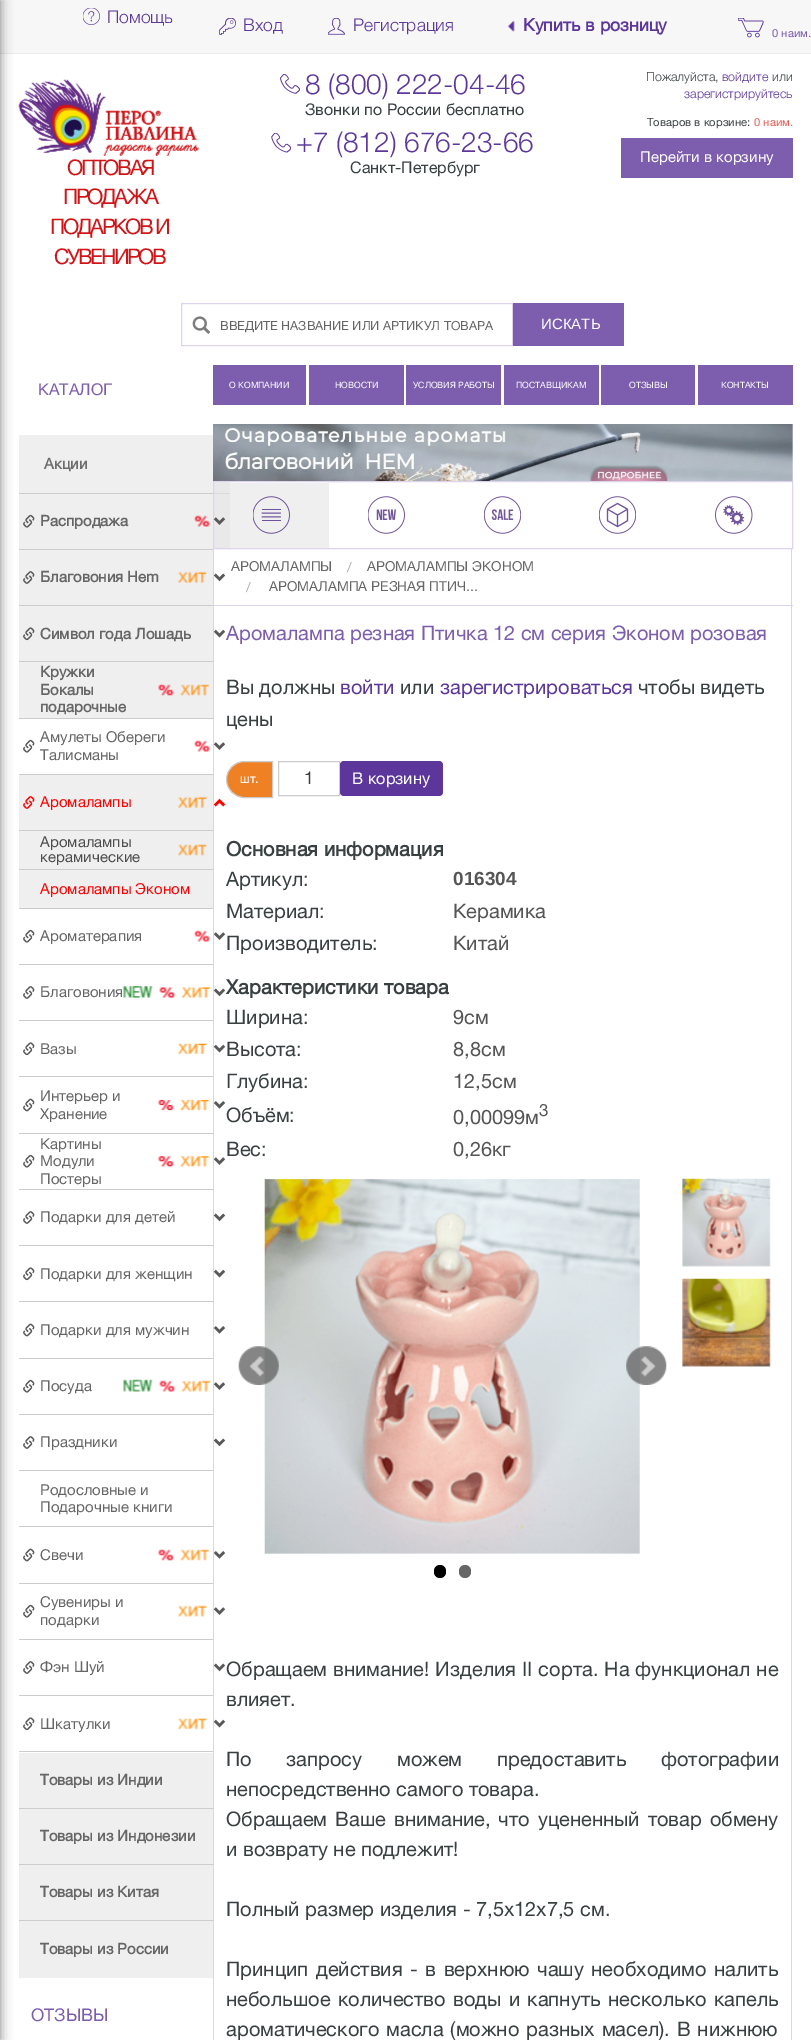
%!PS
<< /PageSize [811 2040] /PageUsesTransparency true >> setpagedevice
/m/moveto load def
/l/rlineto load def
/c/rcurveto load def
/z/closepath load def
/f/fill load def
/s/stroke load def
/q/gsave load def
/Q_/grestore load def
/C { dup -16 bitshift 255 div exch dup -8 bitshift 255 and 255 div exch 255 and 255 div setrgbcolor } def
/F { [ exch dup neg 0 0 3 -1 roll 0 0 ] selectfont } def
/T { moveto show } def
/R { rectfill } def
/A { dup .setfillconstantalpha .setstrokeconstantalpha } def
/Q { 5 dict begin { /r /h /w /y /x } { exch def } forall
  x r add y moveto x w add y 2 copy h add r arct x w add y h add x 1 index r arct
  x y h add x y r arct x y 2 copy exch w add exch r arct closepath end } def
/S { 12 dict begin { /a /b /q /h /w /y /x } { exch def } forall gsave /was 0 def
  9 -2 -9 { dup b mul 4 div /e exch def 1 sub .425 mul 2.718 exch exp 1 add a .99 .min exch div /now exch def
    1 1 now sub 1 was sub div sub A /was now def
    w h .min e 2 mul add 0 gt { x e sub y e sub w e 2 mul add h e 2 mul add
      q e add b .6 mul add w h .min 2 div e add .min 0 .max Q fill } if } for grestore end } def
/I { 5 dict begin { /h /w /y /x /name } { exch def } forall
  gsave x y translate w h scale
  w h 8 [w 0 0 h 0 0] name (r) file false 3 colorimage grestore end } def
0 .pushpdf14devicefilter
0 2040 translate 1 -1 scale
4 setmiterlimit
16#FFFFFF C
0 0 811 2040 R
16#F7F7F7 C
0 0 811 53 R
16#EBEBEB C
0 53 811 1 R
(8.rgb) 18 79 181 77 I
16#000000 C
-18 0 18 2040 0 6 .5 S
(1.rgb) 83 8 17 17 I
/HelveticaNeue-Light 17.5 F
16#5C369B C
(Помощь) 107 23 T
(2.rgb) 219 18 17 17 I
(Вход) 243 31 T
(3.rgb) 328 18 17 17 I
(Регистрация) 353 31 T
(4.rgb) 507 21 8 11 I
/HelveticaNeue-Bold 17.5 F
(Купить в розницу) 523 31 T
(5.rgb) 738 18 26 20 I
/HelveticaNeue-Regular 11.25 F
16#7D5DAD C
(0 наим.) 772 37 T
16#EFEFEF C
230 483 99 65 R
(6.rgb) 280 74 20 20 I
/HelveticaNeue-Light 28 F
16#5C369B C
(8 \(800\) 222-04-46) 305 94 T
/HelveticaNeue-Regular 16 F
16#394042 C
(Звонки по России бесплатно) 305 115 T
(7.rgb) 271 133 20 20 I
/HelveticaNeue-Light 28 F
16#5C369B C
(+7 \(812\) 676-23-66) 296 152 T
/HelveticaNeue-Regular 16 F
16#394042 C
(Санкт-Петербург) 350 173 T
/HelveticaNeue-Light 12.5 F
(Пожалуйста,) 646 81 T
16#5C369B C
(войдите) 722 81 T
16#394042 C
(или) 772 81 T
16#5C369B C
(зарегистрируйтесь) 684 98 T
/HelveticaNeue-Regular 11.25 F
16#394042 C
(Товаров в корзине:) 647 126 T
16#E35F56 C
(0 наим.) 754 126 T
16#7D5DAD C
621 138 172 40 R
/HelveticaNeue-Regular 15 F
16#FFFFFF C
(Перейти в корзину) 640 162 T
/HelveticaNeue-Regular 21.5 F
16#D01417 C
67 175 m -2.5 0 (ОПТОВАЯ) ashow
63 204 m -2.5 0 (ПРОДАЖА) ashow
50 234 m -2.4 0 (ПОДАРКОВ И) ashow
54 264 m -2.5 0 (СУВЕНИРОВ) ashow
16#DDD3EC C
181.5 303.5 331 42 rectstroke
(9.rgb) 192 316 18 18 I
/HelveticaNeue-Regular 12.5 F
16#666666 C
(ВВЕДИТЕ НАЗВАНИЕ ИЛИ АРТИКУЛ ТОВАРА) 220 330 T
16#7D5DAD C
513 303 111 43 R
/LiberationSans-Regular 15 F
16#FFFFFF C
(ИСКАТЬ) 541 329 T
/HelveticaNeue-Regular 16.25 F
16#7D5DAD C
(КАТАЛОГ) 38 395 T
16#EFEFEF C
19 435 211 58 R
16#E9E9E9 C
214 483 16 10 R
/HelveticaNeue-Bold 15 F
16#6D6D6D C
(Акции) 44 469 T
16#CCCCCC C
19 493 194 1 R
16#DBDBDB C
214 493 16 1 R
16#EFEFEF C
19 494 194 55 R
16#E9E9E9 C
214 494 16 54 R
16#CCCCCC C
19 549 194 1 R
(10.rgb) 23 514 12 14 I
16#666666 C
(Распродажа) 40 526 T
(11.rgb) 194 515 17 12 I
16#DDD3EC C
213.5 481.5 579 67 rectstroke
(12.rgb) 213 517 13 8 I
16#EFEFEF C
19 550 194 55 R
16#CCCCCC C
19 605 194 1 R
(13.rgb) 23 571 12 13 I
16#666666 C
(Благовония Hem) 40 582 T
(14.rgb) 178 571 29 12 I
16#DDD3EC C
791 549 1 1491 R
213 605 580 1 R
213 549 1 57 R
(15.rgb) 213 573 13 9 I
16#EFEFEF C
19 606 194 112 R
16#CCCCCC C
19 661 194 1 R
(16.rgb) 23 627 12 14 I
16#666666 C
(Символ года Лошадь) 40 639 T
16#DDD3EC C
213 606 1 1434 R
/HelveticaNeue-Regular 20 F
16#7D5DAD C
(Аромалампа резная Птичка 12 см серия Эконом розовая) 226 640 T
(17.rgb) 213 629 13 9 I
16#CCCCCC C
19 718 194 1 R
/HelveticaNeue-Bold 15 F
16#666666 C
(Кружки) 40 677 T
(Бокалы) 40 695 T
(подарочные) 40 712 T
(18.rgb) 158 684 52 12 I
16#CCCCCC C
19 774 194 1 R
(19.rgb) 23 739 12 14 I
/HelveticaNeue-Regular 15 F
16#666666 C
(Амулеты Обереги) 40 742 T
(Талисманы) 40 760 T
(20.rgb) 194 740 17 12 I
(21.rgb) 213 742 13 8 I
16#EFEFEF C
19 775 194 55 R
16#CCCCCC C
19 830 194 1 R
(22.rgb) 23 796 12 13 I
16#FF0000 C
(Аромалампы) 40 807 T
(14.rgb) 178 796 29 12 I
(23.rgb) 213 798 13 9 I
16#EFEFEF C
19 831 194 77 R
16#CCCCCC C
19 869 194 1 R
16#4D4D4D C
(Аромалампы) 40 847 T
(керамические) 40 862 T
(24.rgb) 178 844 29 12 I
16#CCCCCC C
19 908 194 1 R
16#FF0000 C
(Аромалампы Эконом) 40 894 T
16#CCCCCC C
19 964 194 1 R
(19.rgb) 23 929 12 14 I
16#666666 C
(Ароматерапия) 40 941 T
(20.rgb) 194 930 17 12 I
(21.rgb) 213 932 13 8 I
16#CCCCCC C
19 1020 194 1 R
(25.rgb) 23 986 12 13 I
16#666666 C
(Благовония) 40 997 T
(26.rgb) 123 986 88 12 I
/HelveticaNeue-Bold 20 F
16#394042 C
(Характеристики товара) 226 994 T
(27.rgb) 213 988 13 9 I
16#CCCCCC C
19 1076 194 1 R
(28.rgb) 23 1042 12 14 I
/HelveticaNeue-Regular 15 F
16#666666 C
(Вазы) 40 1054 T
(29.rgb) 178 1043 29 11 I
(17.rgb) 213 1044 13 9 I
16#CCCCCC C
19 1133 194 1 R
(30.rgb) 23 1098 12 14 I
16#666666 C
(Интерьер и) 40 1101 T
(Хранение) 40 1119 T
(31.rgb) 158 1099 52 12 I
(32.rgb) 213 1101 13 8 I
16#CCCCCC C
19 1189 194 1 R
(19.rgb) 23 1154 12 14 I
16#666666 C
(Картины) 40 1149 T
(Модули) 40 1166 T
(Постеры) 40 1184 T
(33.rgb) 158 1156 52 11 I
(21.rgb) 213 1157 13 8 I
16#CCCCCC C
19 1245 194 1 R
(25.rgb) 23 1211 12 13 I
16#666666 C
(Подарки для детей) 40 1222 T
(15.rgb) 213 1213 13 9 I
16#CCCCCC C
19 1301 194 1 R
(28.rgb) 23 1267 12 14 I
16#666666 C
(Подарки для женщин) 40 1279 T
(17.rgb) 213 1269 13 9 I
16#CCCCCC C
19 1358 194 1 R
(30.rgb) 23 1323 12 14 I
16#666666 C
(Подарки для мужчин) 40 1335 T
(32.rgb) 213 1326 13 8 I
16#CCCCCC C
19 1414 194 1 R
(19.rgb) 23 1379 12 14 I
16#666666 C
(Посуда) 40 1391 T
(34.rgb) 123 1379 88 13 I
(21.rgb) 213 1382 13 8 I
16#CCCCCC C
19 1470 194 1 R
(25.rgb) 23 1436 12 13 I
16#666666 C
(Праздники) 40 1447 T
(15.rgb) 213 1438 13 9 I
16#CCCCCC C
19 1526 194 1 R
16#666666 C
(Родословные и) 40 1495 T
(Подарочные книги) 40 1512 T
16#CCCCCC C
19 1583 194 1 R
(30.rgb) 23 1548 12 14 I
16#666666 C
(Свечи) 40 1560 T
(35.rgb) 158 1549 52 12 I
(32.rgb) 213 1551 13 8 I
16#CCCCCC C
19 1639 194 1 R
(19.rgb) 23 1604 12 14 I
16#666666 C
(Сувениры и) 40 1607 T
(подарки) 40 1625 T
(36.rgb) 178 1605 29 12 I
(21.rgb) 213 1607 13 8 I
16#CCCCCC C
19 1695 194 1 R
(25.rgb) 23 1661 12 13 I
16#666666 C
(Фэн Шуй) 40 1672 T
(15.rgb) 213 1663 13 9 I
16#CCCCCC C
19 1751 194 1 R
(28.rgb) 23 1717 12 14 I
16#666666 C
(Шкатулки) 40 1729 T
(37.rgb) 178 1718 29 12 I
(17.rgb) 213 1719 13 9 I
16#EFEFEF C
19 1753 194 55 R
16#CCCCCC C
19 1808 194 1 R
/HelveticaNeue-Bold 15 F
16#666666 C
(Товары из Индии) 40 1785 T
16#EFEFEF C
19 1809 194 55 R
16#CCCCCC C
19 1864 194 1 R
16#666666 C
(Товары из Индонезии) 40 1841 T
16#EFEFEF C
19 1865 194 55 R
16#CCCCCC C
19 1920 194 1 R
16#666666 C
(Товары из Китая) 40 1897 T
16#EFEFEF C
19 1921 194 57 R
16#666666 C
(Товары из России) 40 1954 T
/HelveticaNeue-Regular 17.5 F
16#7D5DAD C
(ОТЗЫВЫ) 31 2021 T
213 365 93 40 R
/HelveticaNeue-Regular 8.75 F
16#FFFFFF C
(О КОМПАНИИ) 229 388 T
16#7D5DAD C
309 365 95 40 R
16#FFFFFF C
(НОВОСТИ) 335 388 T
16#7D5DAD C
406 365 95 40 R
16#FFFFFF C
(УСЛОВИЯ РАБОТЫ) 413 388 T
16#7D5DAD C
504 365 95 40 R
16#FFFFFF C
(ПОСТАВЩИКАМ) 516 388 T
16#7D5DAD C
601 365 94 40 R
16#FFFFFF C
(ОТЗЫВЫ) 629 388 T
16#7D5DAD C
698 365 95 40 R
16#FFFFFF C
(КОНТАКТЫ) 721 388 T
(38.rgb) 213 424 580 57 I
(39.rgb) 253 496 37 38 I
(40.rgb) 368 496 37 38 I
(41.rgb) 484 496 37 38 I
(42.rgb) 599 496 37 38 I
(43.rgb) 715 496 38 38 I
/HelveticaNeue-Regular 13.75 F
16#666666 C
(АРОМАЛАМПЫ) 231 571 T
16#AAAAAA C
(/) 347 572 T
16#666666 C
(АРОМАЛАМПЫ ЭКОНОМ) 367 571 T
16#AAAAAA C
(/) 246 592 T
16#666666 C
(АРОМАЛАМПА РЕЗНАЯ ПТИЧ...) 269 591 T
/HelveticaNeue-Regular 20 F
16#394042 C
(Вы должны) 226 694 T
16#5C369B C
(войти) 340 694 T
16#394042 C
(или) 400 694 T
16#5C369B C
(зарегистрироваться) 440 694 T
16#394042 C
(чтобы видеть) 638 694 T
(цены) 226 726 T
16#EF8024 C
244.5 761.5 m 28 0 l 0 36 l -28 0 l -10 0 -18 -8 -18 -18 c 0 -10 8 -18 18 -18 c z q f Q_
16#CCCCCC C
s
/HelveticaNeue-Regular 12.5 F
16#FFFFFF C
(шт.) 240 783 T
16#CCCCCC C
278.5 761.5 61 34 rectstroke
/HelveticaNeue-Regular 17.5 F
16#404040 C
(1) 304 784 T
16#5C369B C
340 761 103 35 4 Q f
/HelveticaNeue-Regular 16.25 F
16#FFFFFF C
(В корзину) 352 784 T
/HelveticaNeue-Bold 20 F
16#394042 C
(Основная информация) 226 856 T
/HelveticaNeue-Regular 20 F
(Артикул:) 226 886 T
/LiberationSans-Bold 19 F
16#555555 C
(016304) 453 885 T
/HelveticaNeue-Regular 20 F
16#394042 C
(Материал:) 226 918 T
16#555555 C
(Керамика) 453 918 T
16#394042 C
(Производитель:) 226 950 T
16#555555 C
(Китай) 453 950 T
16#394042 C
(Ширина:) 226 1024 T
16#555555 C
(9см) 453 1024 T
16#394042 C
(Высота:) 226 1056 T
16#555555 C
(8,8см) 453 1056 T
16#394042 C
(Глубина:) 226 1088 T
16#555555 C
(12,5см) 453 1088 T
16#394042 C
(Объём:) 226 1122 T
16#555555 C
(0,00099м) 453 1124 T
/HelveticaNeue-Regular 17 F
(3) 539 1116 T
/HelveticaNeue-Regular 20 F
16#394042 C
(Вес:) 226 1156 T
16#555555 C
(0,26кг) 453 1156 T
(44.rgb) 264 1179 376 375 I
(45.rgb) 238 1346 41 39 I
(46.rgb) 626 1346 41 39 I
16#000000 C
434 1565 12 13 6 Q f
16#666666 C
459 1565 12 13 6 Q f
(47.rgb) 682 1178 89 89 I
(48.rgb) 682 1278 89 89 I
16#394042 C
226 1676 m .5 0 32 (Обращаем внимание! Изделия II сорта. На функционал не) widthshow
(влияет.) 226 1706 T
226 1766 m 29 0 32 (По запросу можем предоставить фотографии) widthshow
(непосредственно самого товара.) 226 1796 T
226 1826 m 2.5 0 32 (Обращаем Ваше внимание, что уцененный товар обмену) widthshow
(и возврату не подлежит!) 226 1856 T
(Полный размер изделия - 7,5х12х7,5 см.) 226 1916 T
226 1976 m 2 0 32 (Принцип действия - в верхнюю чашу необходимо налить) widthshow
226 2006 m 1.75 0 32 (небольшое количество воды и капнуть несколько капель) widthshow
226 2036 m 1.5 0 32 (ароматического масла \(можно разных масел\). В нижнюю) widthshow
.poppdf14devicefilter showpage
